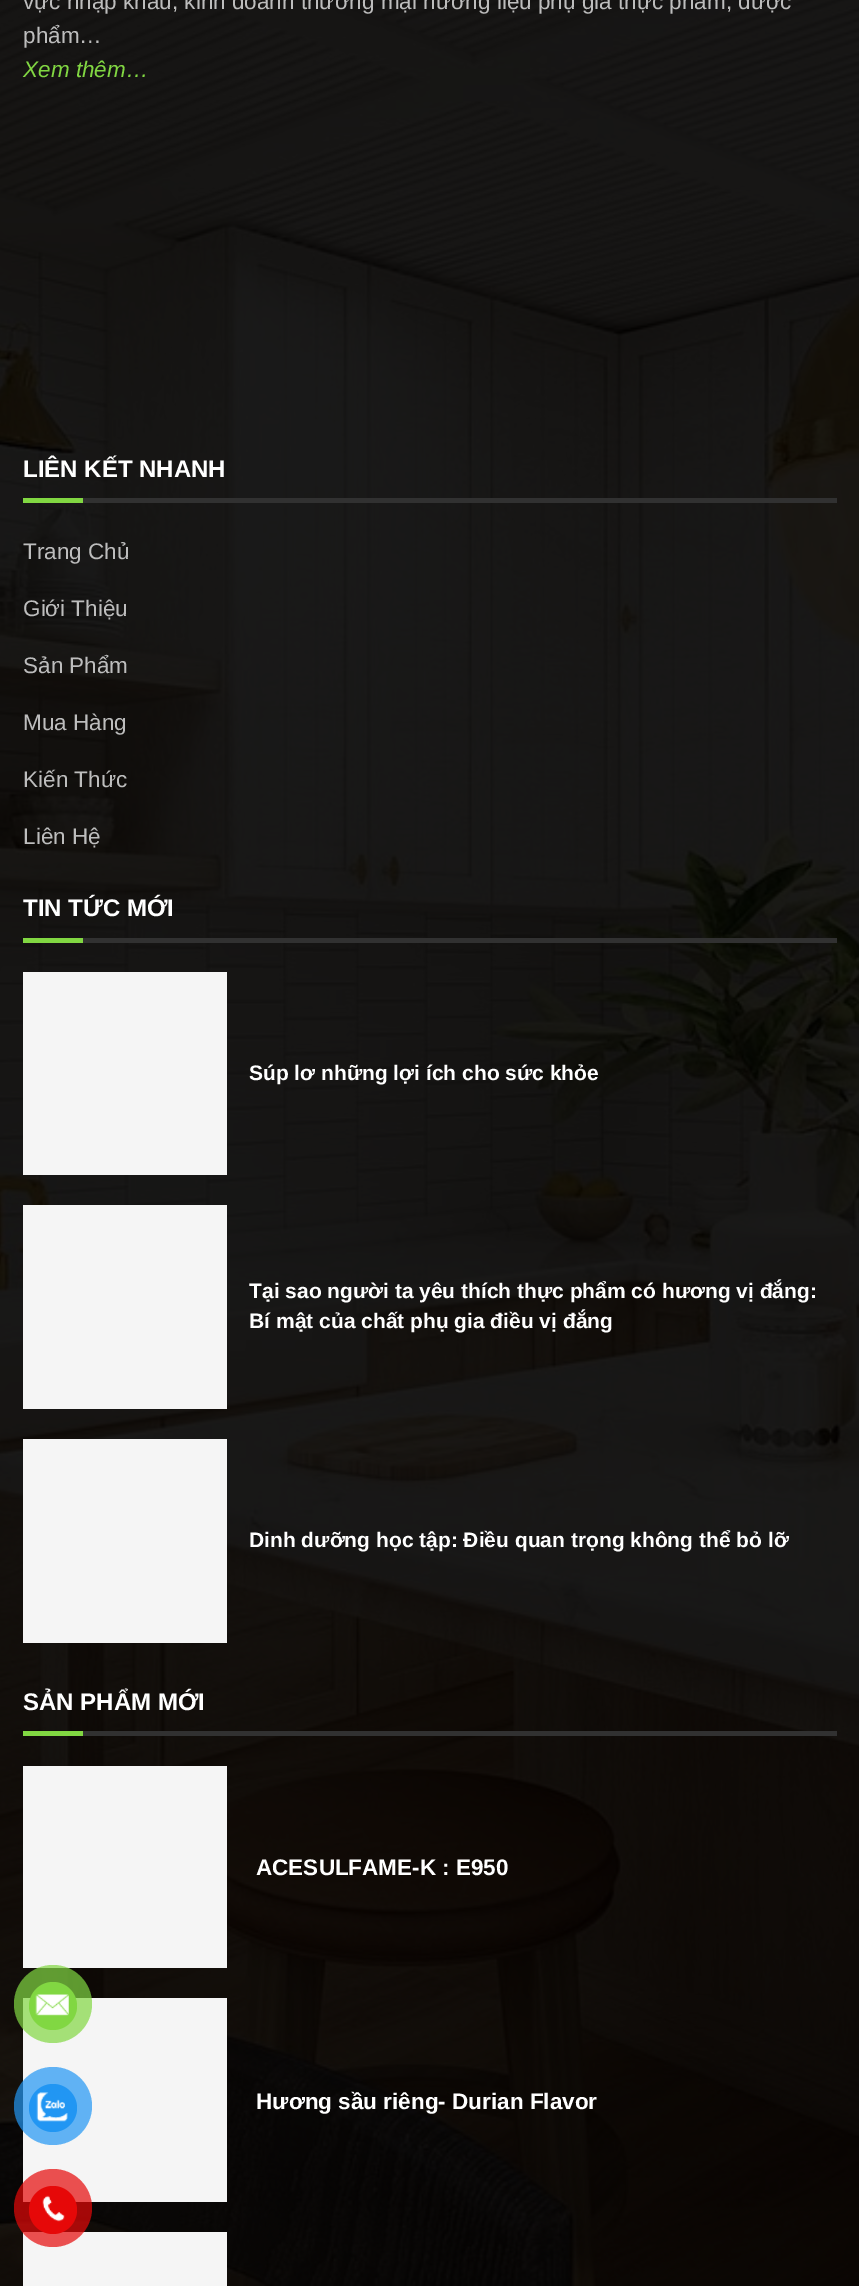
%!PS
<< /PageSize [859 2286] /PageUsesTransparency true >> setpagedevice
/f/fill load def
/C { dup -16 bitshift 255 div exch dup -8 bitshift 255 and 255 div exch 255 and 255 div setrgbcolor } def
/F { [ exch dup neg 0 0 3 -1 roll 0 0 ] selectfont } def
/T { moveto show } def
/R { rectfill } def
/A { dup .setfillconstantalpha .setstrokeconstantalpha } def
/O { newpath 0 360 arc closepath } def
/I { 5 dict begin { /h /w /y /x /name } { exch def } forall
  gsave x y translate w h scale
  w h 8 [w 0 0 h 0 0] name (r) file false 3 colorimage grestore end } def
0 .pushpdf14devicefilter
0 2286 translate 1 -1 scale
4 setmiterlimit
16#FFFFFF C
0 0 859 2286 R
(1.rgb) 0 0 859 2286 I
/LiberationSans-Regular 22.5 F
16#BDBDBD C
(vực nhập khẩu, kinh doanh thương mại hương liệu phụ gia thực phẩm, dược) 23 9 T
(phẩm…) 23 43 T
/LiberationSans-Italic 22.5 F
16#81D742 C
(Xem thêm…) 23 77 T
16#313131 C
83 498 754 5 R
/LiberationSans-Bold 24 F
16#FFFFFF C
(LIÊN KẾT NHANH) 23 477 T
16#81D742 C
23 498 60 5 R
/LiberationSans-Regular 22.5 F
16#BDBDBD C
(Trang Chủ) 23 559 T
(Giới Thiệu) 23 616 T
(Sản Phẩm) 23 673 T
(Mua Hàng) 23 730 T
(Kiến Thức) 23 787 T
(Liên Hệ) 23 844 T
16#313131 C
83 938 754 5 R
/LiberationSans-Bold 24 F
16#FFFFFF C
(TIN TỨC MỚI) 23 916 T
16#81D742 C
23 938 60 5 R
16#F5F5F5 C
23 972 204 203 R
/LiberationSans-Bold 21 F
16#FFFFFF C
(Súp lơ những lợi ích cho sức khỏe) 249 1080 T
16#F5F5F5 C
23 1205 204 204 R
16#FFFFFF C
(Tại sao người ta yêu thích thực phẩm có hương vị đắng:) 249 1298 T
(Bí mật của chất phụ gia điều vị đắng) 249 1328 T
16#F5F5F5 C
23 1439 204 204 R
16#FFFFFF C
(Dinh dưỡng học tập: Điều quan trọng không thể bỏ lỡ) 249 1547 T
16#313131 C
83 1731 754 5 R
/LiberationSans-Bold 24 F
16#FFFFFF C
(SẢN PHẨM MỚI) 23 1710 T
16#81D742 C
23 1731 60 5 R
16#F5F5F5 C
23 1766 204 202 R
/LiberationSans-Bold 22.5 F
16#FFFFFF C
(ACESULFAME-K : E950) 256 1875 T
16#F5F5F5 C
23 1998 204 204 R
16#FFFFFF C
(Hương sầu riêng- Durian Flavor) 256 2109 T
16#F5F5F5 C
23 2232 204 54 R
0.7 A
16#81D742 C
53 2004 39 O f
1 A
53 2006 24 O f
(2.rgb) 35 1994 34 22 I
0.7 A
16#2196F3 C
53 2106 39 O f
1 A
53 2108 24 O f
(3.rgb) 36 2092 32 30 I
0.7 A
16#E60808 C
53 2208 39 O f
1 A
53 2210 24 O f
(4.rgb) 42 2195 23 27 I
.poppdf14devicefilter showpage
